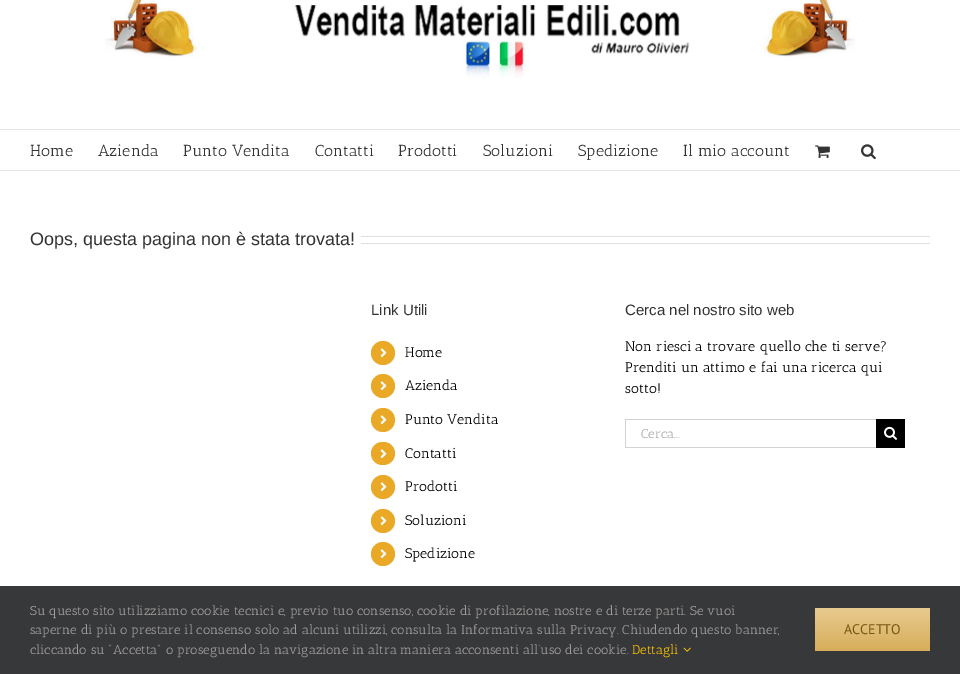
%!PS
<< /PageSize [960 674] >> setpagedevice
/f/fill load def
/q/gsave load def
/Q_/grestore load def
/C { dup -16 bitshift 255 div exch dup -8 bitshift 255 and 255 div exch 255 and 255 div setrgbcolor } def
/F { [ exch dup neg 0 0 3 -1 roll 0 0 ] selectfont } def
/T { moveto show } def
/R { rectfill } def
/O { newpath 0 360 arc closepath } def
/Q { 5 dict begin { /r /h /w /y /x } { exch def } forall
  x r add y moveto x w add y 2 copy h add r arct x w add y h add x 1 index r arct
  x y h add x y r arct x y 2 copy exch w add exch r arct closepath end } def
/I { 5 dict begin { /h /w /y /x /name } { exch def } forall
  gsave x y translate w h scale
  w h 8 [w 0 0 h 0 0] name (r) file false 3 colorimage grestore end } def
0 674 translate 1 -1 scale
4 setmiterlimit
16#FFFFFF C
0 0 960 674 R
16#E5E5E5 C
0 129 960 1 R
(1.rgb) 105 0 750 78 I
0 170 960 1 R
/AnticSlab-Regular 16 F
16#333333 C
(Home) 30 156 T
(Azienda) 98 156 T
(Punto Vendita) 183 156 T
(Contatti) 315 156 T
(Prodotti) 398 156 T
(Soluzioni) 483 156 T
(Spedizione) 578 156 T
(Il mio account) 683 156 T
(2.rgb) 815 145 15 13 I
(3.rgb) 861 144 15 16 I
/LiberationSans-Regular 18 F
(Oops, questa pagina non è stata trovata!) 30 245 T
16#E0DEDE C
361 236 569 1 R
361 243 569 1 R
/LiberationSans-Regular 15 F
16#333333 C
(Link Utili) 371 315 T
16#E9A825 C
383 353 12 O f
(4.rgb) 380 348 7 10 I
/AnticSlab-Regular 14 F
16#000000 C
(Home) 405 357 T
16#E9A825 C
383 386 12 O f
(4.rgb) 380 381 7 10 I
16#000000 C
(Azienda) 405 390 T
16#E9A825 C
383 420 12 O f
(4.rgb) 380 415 7 10 I
16#000000 C
(Punto Vendita) 405 424 T
16#E9A825 C
371 442 24 23 11.5 Q f
(4.rgb) 380 449 7 10 I
16#000000 C
(Contatti) 405 458 T
16#E9A825 C
383 487 12 O f
(4.rgb) 380 482 7 10 I
16#000000 C
(Prodotti) 405 491 T
16#E9A825 C
383 521 12 O f
(4.rgb) 380 516 7 10 I
16#000000 C
(Soluzioni) 405 525 T
16#E9A825 C
383 554 12 O f
(4.rgb) 380 549 7 10 I
16#000000 C
(Spedizione) 405 558 T
/LiberationSans-Regular 15 F
16#333333 C
(Cerca nel nostro sito web) 625 315 T
/AnticSlab-Regular 14 F
16#000000 C
(Non riesci a trovare quello che ti serve?) 625 351 T
(Prenditi un attimo e fai una ricerca qui) 625 372 T
(sotto!) 625 393 T
16#D2D2D2 C
625 419 251 1 R
625 447 251 1 R
625 419 1 29 R
/AnticSlab-Regular 13 F
16#AAA9A9 C
(Cerca...) 641 438 T
16#000000 C
876 419 29 29 R
(5.rgb) 884 426 13 14 I
16#363839 C
0 586 960 88 R
16#A39E9E C
(Su questo sito utilizziamo cookie tecnici e, previo tuo consenso, cookie di profilazione, nostre e di terze parti. Se vuoi) 30 615 T
(saperne di più o prestare il consenso solo ad alcuni utilizzi, consulta la Informativa sulla Privacy. Chiudendo questo banner,) 30 634 T
(cliccando su "Accetta" o proseguendo la navigazione in altra maniera acconsenti all’uso dei cookie.) 30 654 T
16#FFC107 C
(Dettagli) 632 654 T
(6.rgb) 683 647 8 5 I
q 815 608 115 43 2 Q clip newpath
<< /ShadingType 2 /ColorSpace /DeviceRGB /Coords [873 608 873 651] /Extend [true true] /Function << /FunctionType 2 /Domain [0 1] /C0 [.91 .796 .565] /C1 [.839 .678 .353] /N 1 >> >> shfill Q_
/PTSans-Regular 14 F
16#785510 C
(ACCETTO) 844 634 T
showpage
